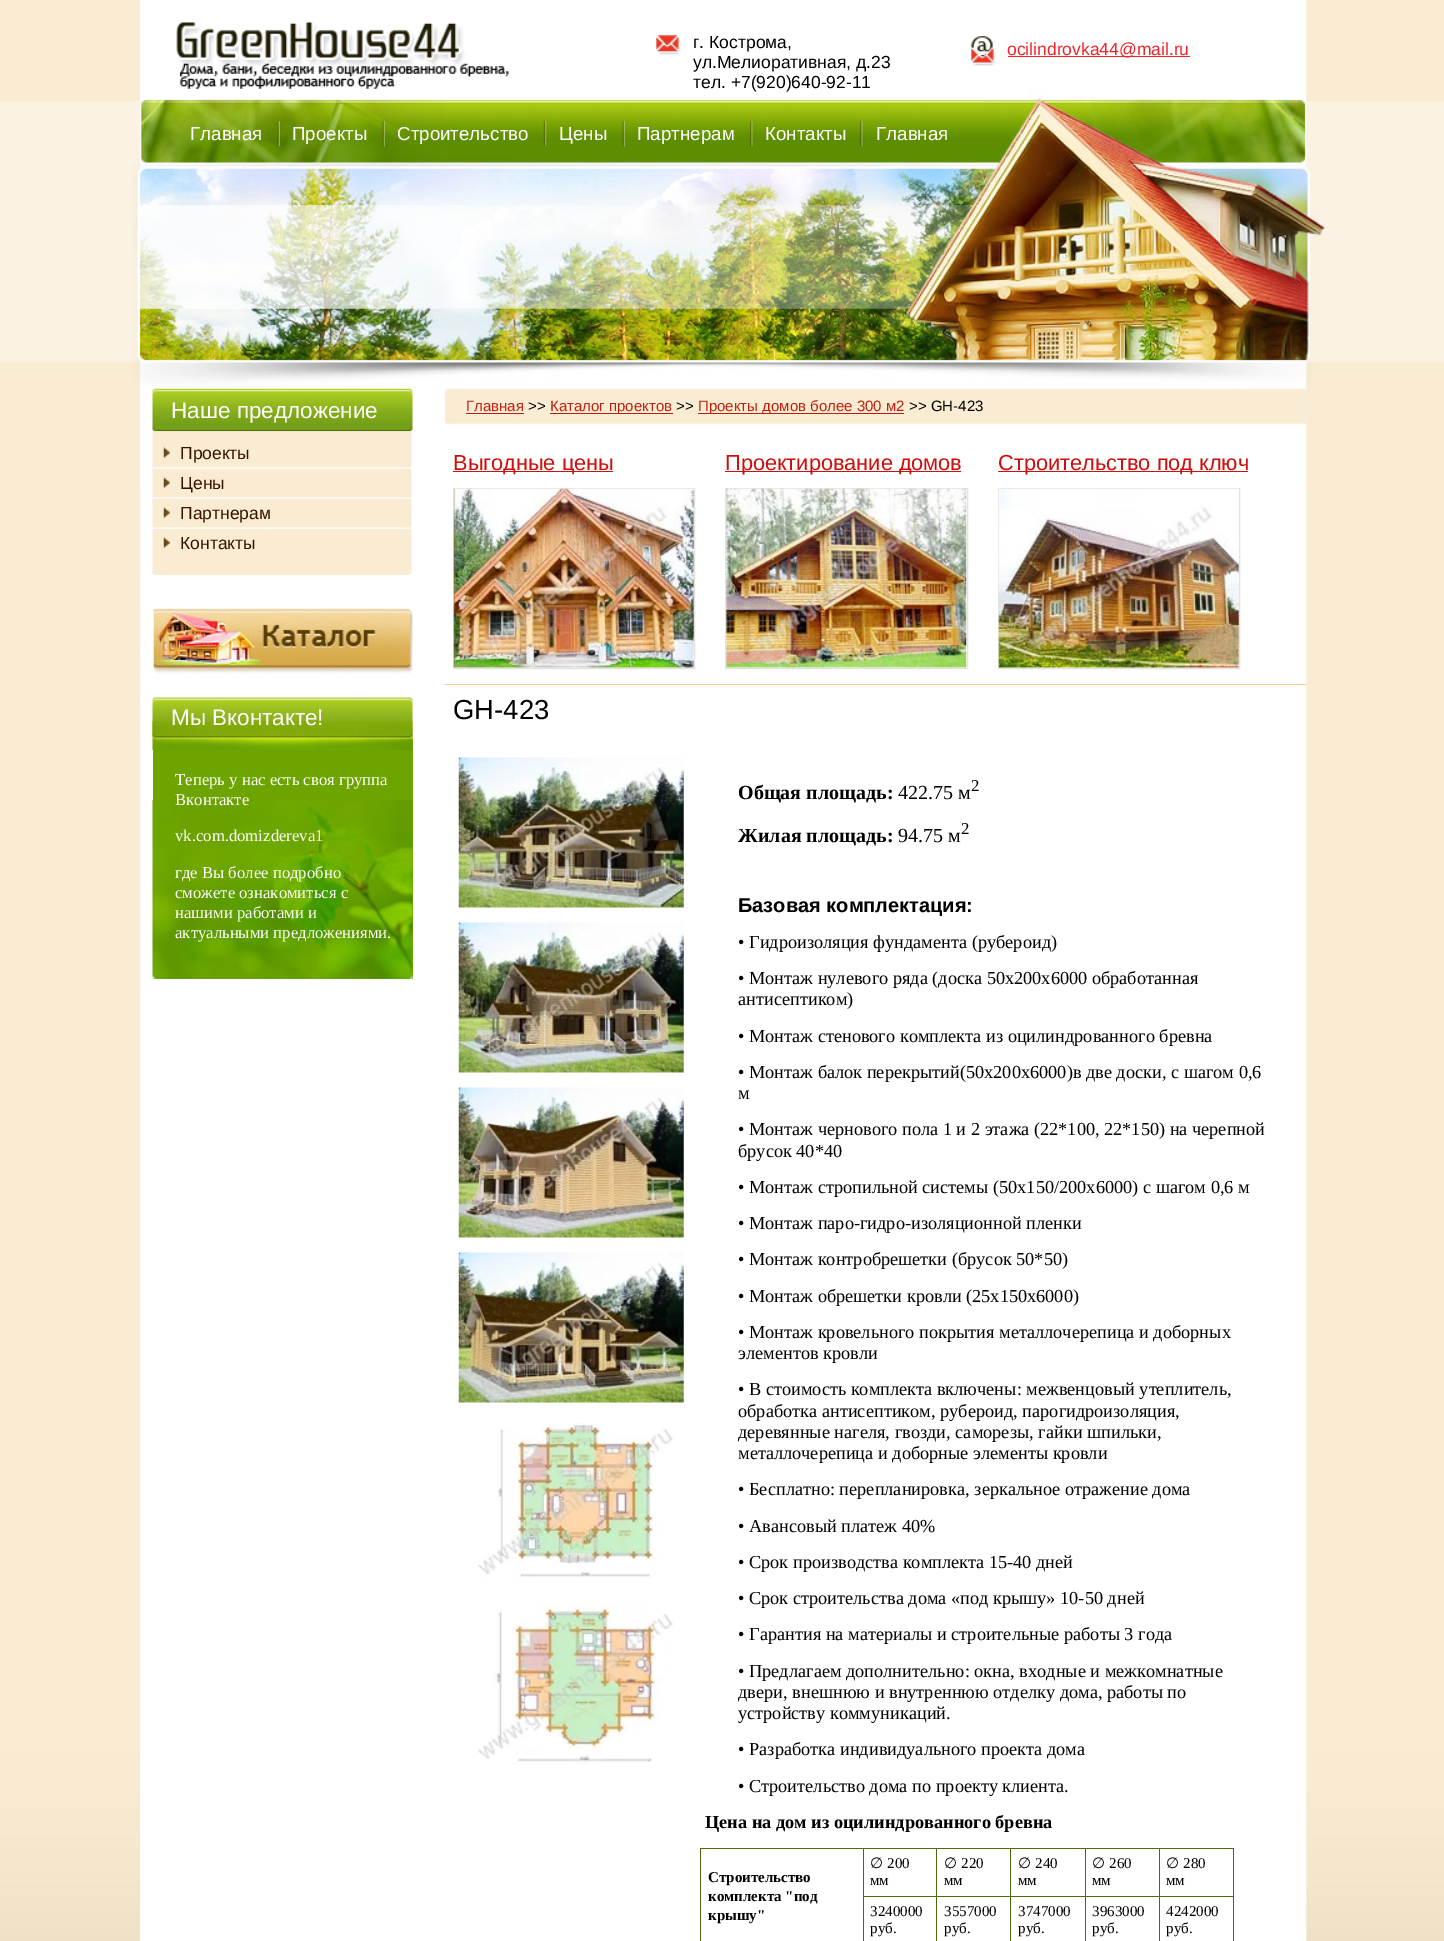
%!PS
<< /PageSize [1444 1941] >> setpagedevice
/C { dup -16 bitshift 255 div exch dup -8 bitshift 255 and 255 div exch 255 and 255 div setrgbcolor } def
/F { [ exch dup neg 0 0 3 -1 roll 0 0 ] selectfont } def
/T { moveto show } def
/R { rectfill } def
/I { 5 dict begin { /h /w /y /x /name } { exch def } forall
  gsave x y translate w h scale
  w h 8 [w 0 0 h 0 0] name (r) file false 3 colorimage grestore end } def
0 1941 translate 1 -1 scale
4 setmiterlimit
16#F9ECD2 C
0 0 1444 1941 R
(1.rgb) 140 490 1167 1140 I
(2.rgb) 0 0 1444 490 I
(3.rgb) 130 0 1200 490 I
(4.rgb) 176 22 333 67 I
(5.rgb) 656 34 25 21 I
/LiberationSans-Regular 17.5 F
16#000000 C
(г. Кострома,) 693 48 T
(ул.Мелиоративная, д.23) 693 68 T
(тел. +7\(920\)640-92-11) 693 88 T
(6.rgb) 971 36 25 30 I
16#F32226 C
1008 56 182 1 R
(ocilindrovka44@mail.ru) 1007 55 T
/LiberationSans-Regular 18.75 F
16#FFFFFF C
(Главная) 190 140 T
(7.rgb) 277 121 3 26 I
(Проекты) 292 140 T
(8.rgb) 382 121 3 26 I
(Строительство) 397 140 T
(9.rgb) 543 121 4 26 I
(Цены) 559 140 T
(10.rgb) 622 121 3 26 I
(Партнерам) 637 140 T
(11.rgb) 750 121 3 26 I
(Контакты) 765 140 T
(11.rgb) 860 121 3 26 I
(Главная) 876 140 T
(12.rgb) 152 388 261 44 I
/LiberationSans-Regular 22.5 F
(Наше предложение) 171 418 T
(13.rgb) 152 431 260 144 I
(14.rgb) 152 571 260 4 I
(15.rgb) 163 447 7 12 I
/LiberationSans-Regular 17.5 F
16#381201 C
(Проекты) 180 459 T
(16.rgb) 152 467 259 2 I
(15.rgb) 163 477 7 12 I
(Цены) 180 489 T
(16.rgb) 152 497 259 2 I
(15.rgb) 163 507 7 12 I
(Партнерам) 180 519 T
(16.rgb) 152 527 259 2 I
(15.rgb) 163 537 7 12 I
(Контакты) 180 549 T
(17.rgb) 152 608 261 71 I
(18.rgb) 152 697 261 42 I
(19.rgb) 152 721 261 18 I
/LiberationSans-Regular 22.5 F
16#FFFFFF C
(Мы Вконтакте!) 171 725 T
16#6DA400 C
153 739 260 240 R
(20.rgb) 152 800 261 179 I
(21.rgb) 152 738 261 12 I
/LiberationSerif-Regular 16.7 F
16#FFFFFF C
(Теперь у нас есть своя группа) 175 785 T
(Вконтакте) 175 805 T
(vk.com.domizdereva1) 175 841 T
(где Вы более подробно) 175 878 T
(сможете ознакомиться с) 175 898 T
(нашими работами и) 175 918 T
(актуальными предложениями.) 175 938 T
(22.rgb) 445 388 862 36 I
/LiberationSans-Regular 15 F
16#BF1F0E C
(Главная) 466 411 T
466 413 58 1 R
16#000000 C
(>>) 528 411 T
16#BF1F0E C
550 413 123 1 R
(Каталог проектов) 550 411 T
16#000000 C
(>>) 676 411 T
16#BF1F0E C
698 413 206 1 R
(Проекты домов более 300 м2) 698 411 T
16#000000 C
(>> GH-423) 909 411 T
16#EFCB91 C
445 684 861 1 R
16#D00F0C C
453 471 160 1 R
/LiberationSans-Regular 21.75 F
(Выгодные цены) 453 470 T
16#E6E3DE C
453.5 488.5 241 180 rectstroke
(23.rgb) 453 488 241 180 I
16#D00F0C C
725 471 236 1 R
(Проектирование домов) 725 470 T
16#E6E3DE C
725.5 488.5 242 180 rectstroke
(24.rgb) 726 488 241 180 I
16#D00F0C C
998 471 250 1 R
(Строительство под ключ) 998 470 T
16#E6E3DE C
998.5 488.5 241 180 rectstroke
(25.rgb) 998 488 241 180 I
/LiberationSans-Regular 27.5 F
16#000000 C
(GH-423) 453 719 T
(26.rgb) 458 757 226 151 I
(27.rgb) 458 922 226 151 I
(28.rgb) 458 1087 226 151 I
(29.rgb) 458 1252 226 151 I
(30.rgb) 477 1423 196 156 I
(32.rgb) 0 1630 1444 311 I
(33.rgb) 140 1630 1168 311 I
(31.rgb) 477 1602 196 162 I
/LiberationSerif-Bold 20 F
(Общая площадь:) 738 799 T
/LiberationSerif-Regular 20 F
(422.75 м) 898 799 T
/LiberationSerif-Regular 16.7 F
(2) 971 791 T
/LiberationSerif-Bold 20 F
(Жилая площадь:) 738 842 T
/LiberationSerif-Regular 20 F
(94.75 м) 898 842 T
/LiberationSerif-Regular 16.7 F
(2) 961 834 T
/LiberationSans-Bold 20 F
(Базовая комплектация:) 738 912 T
/LiberationSerif-Regular 18.3 F
(• Гидроизоляция фундамента \(рубероид\)) 738 948 T
(• Монтаж нулевого ряда \(доска 50х200х6000 обработанная) 738 984 T
(антисептиком\)) 738 1005 T
(• Монтаж стенового комплекта из оцилиндрованного бревна) 738 1042 T
(• Монтаж балок перекрытий\(50х200х6000\)в две доски, с шагом 0,6) 738 1078 T
(м) 738 1099 T
(• Монтаж чернового пола 1 и 2 этажа \(22*100, 22*150\) на черепной) 738 1135 T
(брусок 40*40) 738 1157 T
(• Монтаж стропильной системы \(50х150/200х6000\) с шагом 0,6 м) 738 1193 T
(• Монтаж паро-гидро-изоляционной пленки) 738 1229 T
(• Монтаж контробрешетки \(брусок 50*50\)) 738 1265 T
(• Монтаж обрешетки кровли \(25х150х6000\)) 738 1302 T
(• Монтаж кровельного покрытия металлочерепица и доборных) 738 1338 T
(элементов кровли) 738 1359 T
(• В стоимость комплекта включены: межвенцовый утеплитель,) 738 1395 T
(обработка антисептиком, рубероид, парогидроизоляция,) 738 1417 T
(деревянные нагеля, гвозди, саморезы, гайки шпильки,) 738 1438 T
(металлочерепица и доборные элементы кровли) 738 1459 T
(• Бесплатно: перепланировка, зеркальное отражение дома) 738 1495 T
(• Авансовый платеж 40%) 738 1532 T
(• Срок производства комплекта 15-40 дней) 738 1568 T
(• Срок строительства дома «под крышу» 10-50 дней) 738 1604 T
(• Гарантия на материалы и строительные работы 3 года) 738 1640 T
(• Предлагаем дополнительно: окна, входные и межкомнатные) 738 1677 T
(двери, внешнюю и внутреннюю отделку дома, работы по) 738 1698 T
(устройству коммуникаций.) 738 1719 T
(• Разработка индивидуального проекта дома) 738 1755 T
(• Строительство дома по проекту клиента.) 738 1792 T
/LiberationSerif-Bold 18.3 F
(Цена на дом из оцилиндрованного бревна) 705 1828 T
16#496A0D C
1159 1848 75 1 R
1159 1896 75 1 R
1159 1896 1 45 R
1085 1896 75 1 R
1159 1848 1 50 R
1085 1848 75 1 R
1085 1896 1 45 R
1010 1896 76 1 R
1085 1848 1 50 R
1010 1848 76 1 R
1010 1896 1 45 R
936 1896 75 1 R
1010 1848 1 50 R
936 1848 75 1 R
936 1896 1 45 R
863 1896 75 1 R
936 1848 1 50 R
863 1848 75 1 R
863 1896 1 45 R
863 1848 1 50 R
700 1848 164 1 R
700 1848 1 93 R
/LiberationSerif-Bold 15 F
16#000000 C
(Строительство) 708 1882 T
(комплекта "под) 708 1901 T
(крышу") 708 1920 T
/DejaVuSans-Regular 15 F
(∅) 870 1868 T
/LiberationSerif-Regular 15 F
(200) 887 1868 T
(мм) 870 1885 T
/DejaVuSans-Regular 15 F
(∅) 944 1868 T
/LiberationSerif-Regular 15 F
(220) 961 1868 T
(мм) 944 1885 T
/DejaVuSans-Regular 15 F
(∅) 1018 1868 T
/LiberationSerif-Regular 15 F
(240) 1035 1868 T
(мм) 1018 1885 T
/DejaVuSans-Regular 15 F
(∅) 1092 1868 T
/LiberationSerif-Regular 15 F
(260) 1109 1868 T
(мм) 1092 1885 T
16#496A0D C
1233 1896 1 45 R
1233 1848 1 50 R
/DejaVuSans-Regular 15 F
16#000000 C
(∅) 1166 1868 T
/LiberationSerif-Regular 15 F
(280) 1183 1868 T
(мм) 1166 1885 T
(3240000) 870 1916 T
(руб.) 870 1933 T
(3557000) 944 1916 T
(руб.) 944 1933 T
(3747000) 1018 1916 T
(руб.) 1018 1933 T
(3963000) 1092 1916 T
(руб.) 1092 1933 T
(4242000) 1166 1916 T
(руб.) 1166 1933 T
showpage
